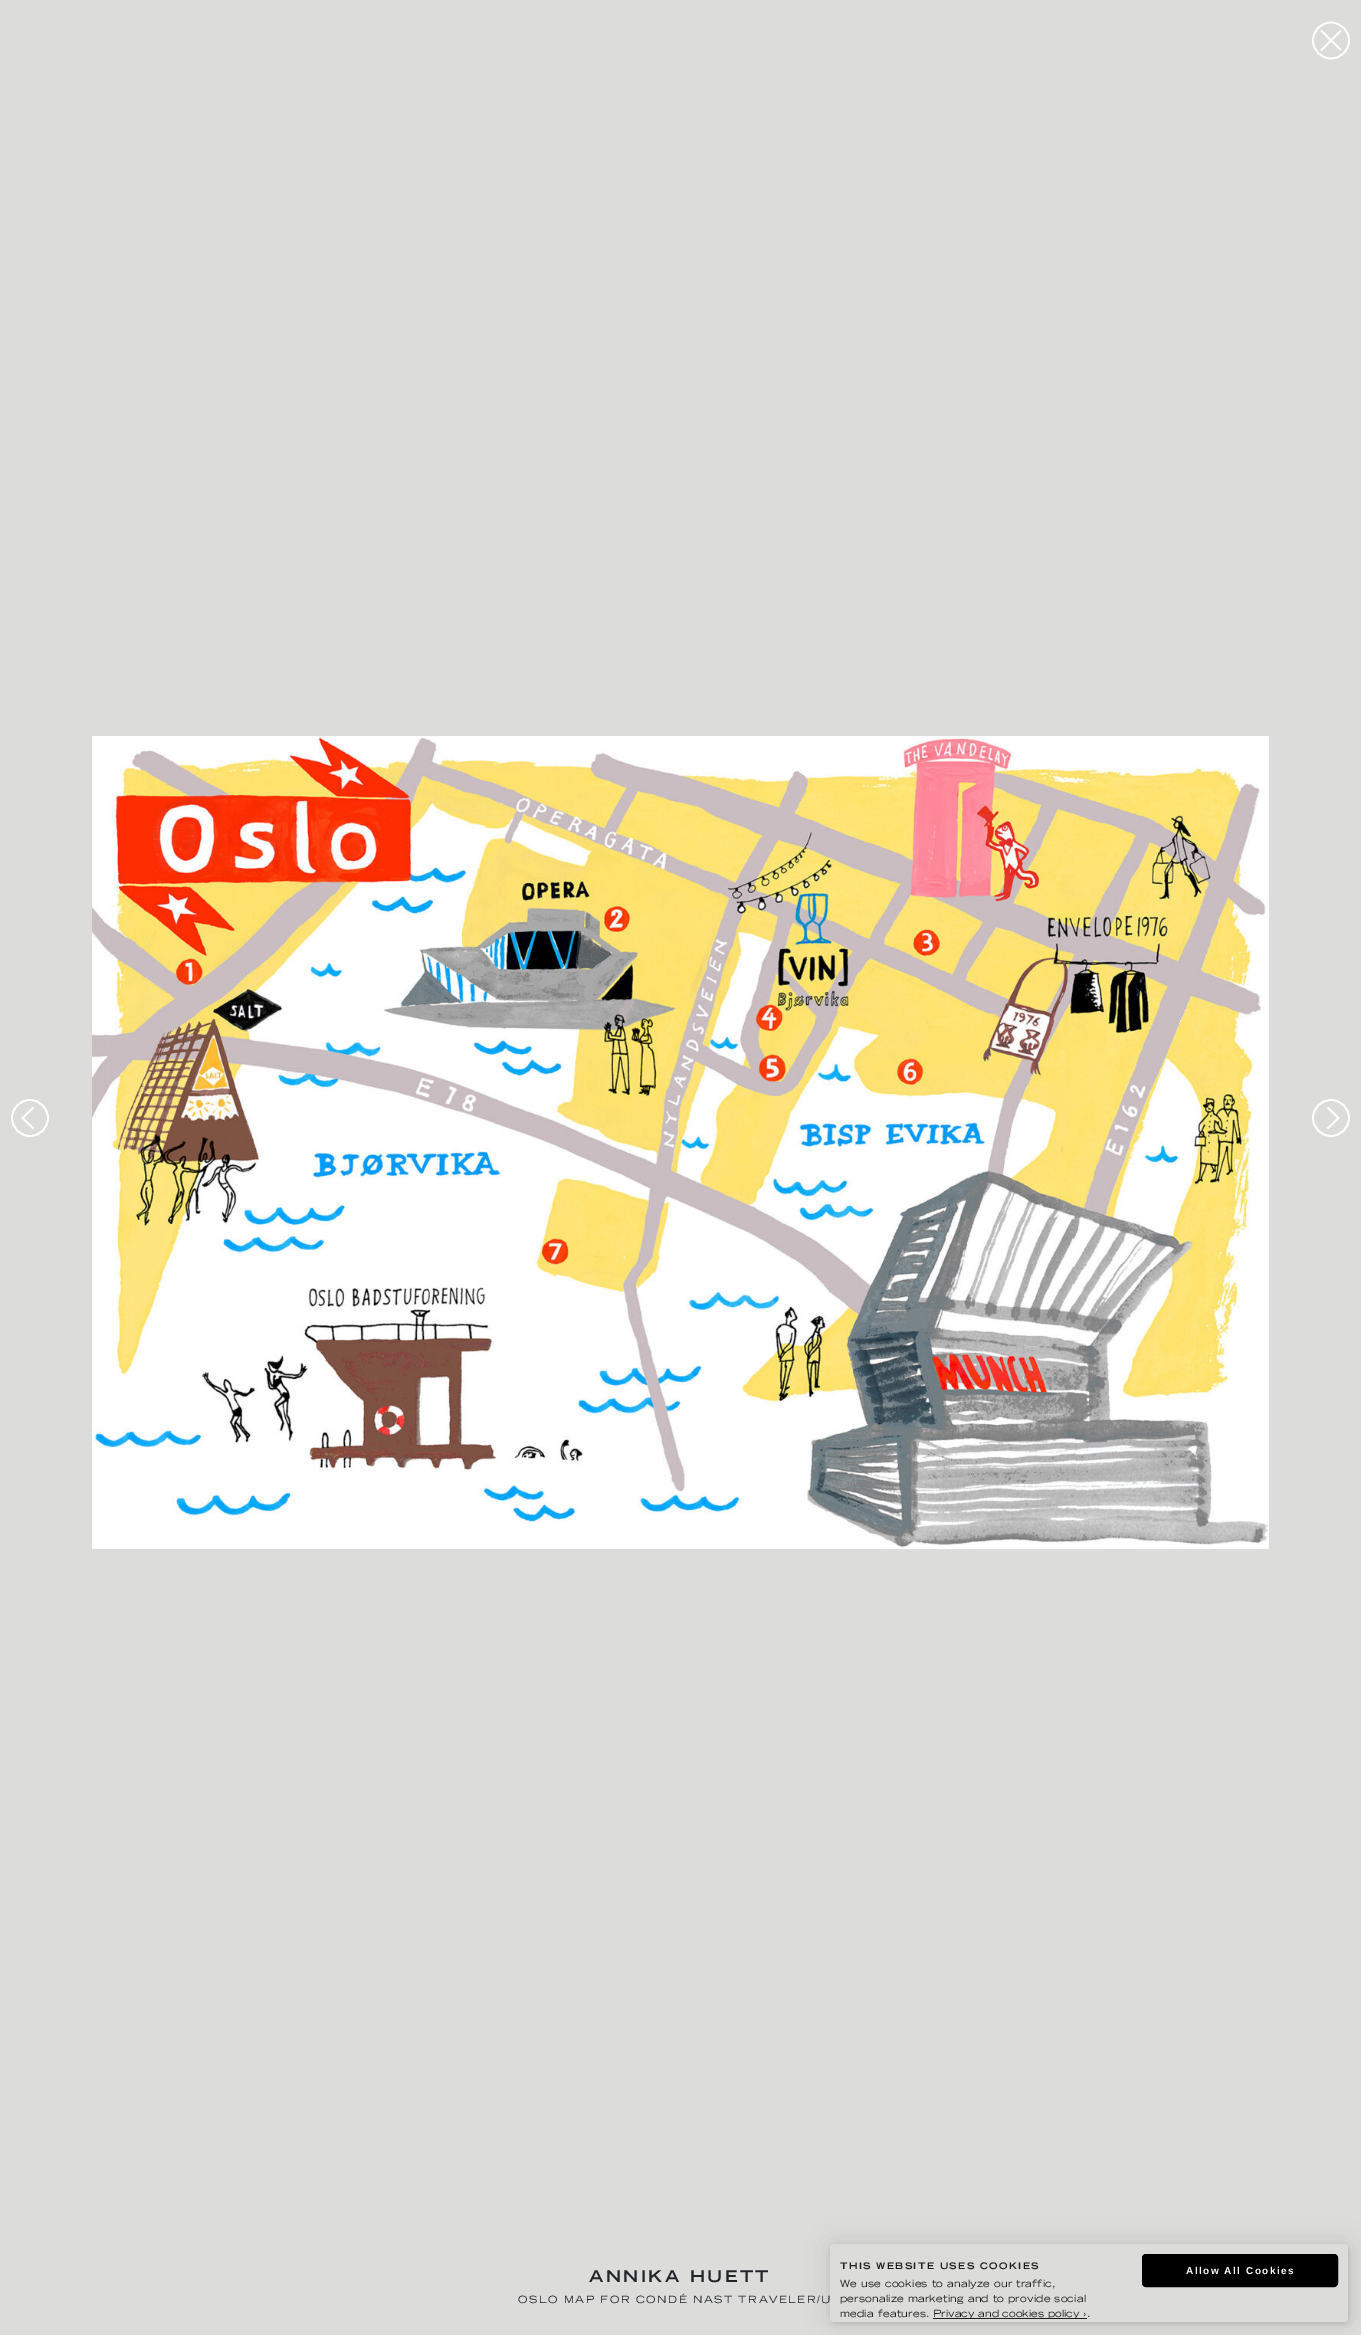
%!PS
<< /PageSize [1361 2335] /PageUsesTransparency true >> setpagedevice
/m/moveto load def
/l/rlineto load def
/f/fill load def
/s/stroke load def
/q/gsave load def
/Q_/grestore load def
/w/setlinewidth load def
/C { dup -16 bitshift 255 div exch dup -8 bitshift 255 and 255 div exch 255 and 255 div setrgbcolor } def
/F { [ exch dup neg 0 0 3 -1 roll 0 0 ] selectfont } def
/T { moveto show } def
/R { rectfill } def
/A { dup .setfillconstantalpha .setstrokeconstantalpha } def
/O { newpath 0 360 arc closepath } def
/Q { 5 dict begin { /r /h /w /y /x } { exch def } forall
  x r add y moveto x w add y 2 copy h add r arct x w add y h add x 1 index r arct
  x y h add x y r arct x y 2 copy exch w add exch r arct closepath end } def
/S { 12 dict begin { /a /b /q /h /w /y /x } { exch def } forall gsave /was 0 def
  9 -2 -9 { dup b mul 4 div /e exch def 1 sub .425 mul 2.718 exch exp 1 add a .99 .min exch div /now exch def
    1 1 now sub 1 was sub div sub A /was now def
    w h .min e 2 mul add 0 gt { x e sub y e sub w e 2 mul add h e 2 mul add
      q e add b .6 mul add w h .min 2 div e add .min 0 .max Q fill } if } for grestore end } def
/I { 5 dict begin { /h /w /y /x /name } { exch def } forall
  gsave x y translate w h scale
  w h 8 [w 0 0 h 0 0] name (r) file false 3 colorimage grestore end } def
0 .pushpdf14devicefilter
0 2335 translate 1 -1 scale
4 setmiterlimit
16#DCDCDA C
0 0 1361 2335 R
16#FFFFFF C
1.7 w
1331 40.5 18 O s
1321 50.5 m 20 -20 l 1341 50 m -20 -19.5 l s
1.8 w
30 1118 18 O s
33.5 1107.5 m -11 10.5 l 11 10.5 l s
(1.rgb) 92 736 1177 813 I
1331 1118 18 O s
1327.5 1128.5 m 11 -10.5 l -11 -10.5 l s
/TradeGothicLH-Bold 16 F
16#212529 C
589 2282 m 2.4 0 (ANNIKA HUETT) ashow
/TradeGothicLH-Regular 10 F
518 2303 m -.25 0 32 1.5 0 (OSLO MAP FOR CONDÉ NAST TRAVELER/U) awidthshow
16#000000 C
831 2246 518 78 4 2.5 .1 S
830 2244 518 78 4 12.5 .1 S
16#DCDCDA C
830 2244 518 78 4 Q f
/TradeGothicLH-Bold 9 F
16#1E1E1E C
840 2269 m 1.35 0 (THIS WEBSITE USES COOKIES) ashow
/TradeGothicLH-Regular 10 F
840 2287 m .2 0 (We use cookies to analyze our traffic,) ashow
840 2302 m .2 0 (personalize marketing and to provide social) ashow
840 2317 m .2 0 (media features.) ashow
933 2318 154 1 R
(Privacy and cookies policy ›) 933 2317 T
1087 2317 m .2 0 (.) ashow
16#000000 C
1142.5 2254.5 195 32 3.5 Q q f Q_
1 w
s
/LiberationSans-Bold 10 F
16#FFFFFF C
1186 2274 m 1.5 0 (Allow All Cookies) ashow
.poppdf14devicefilter showpage
